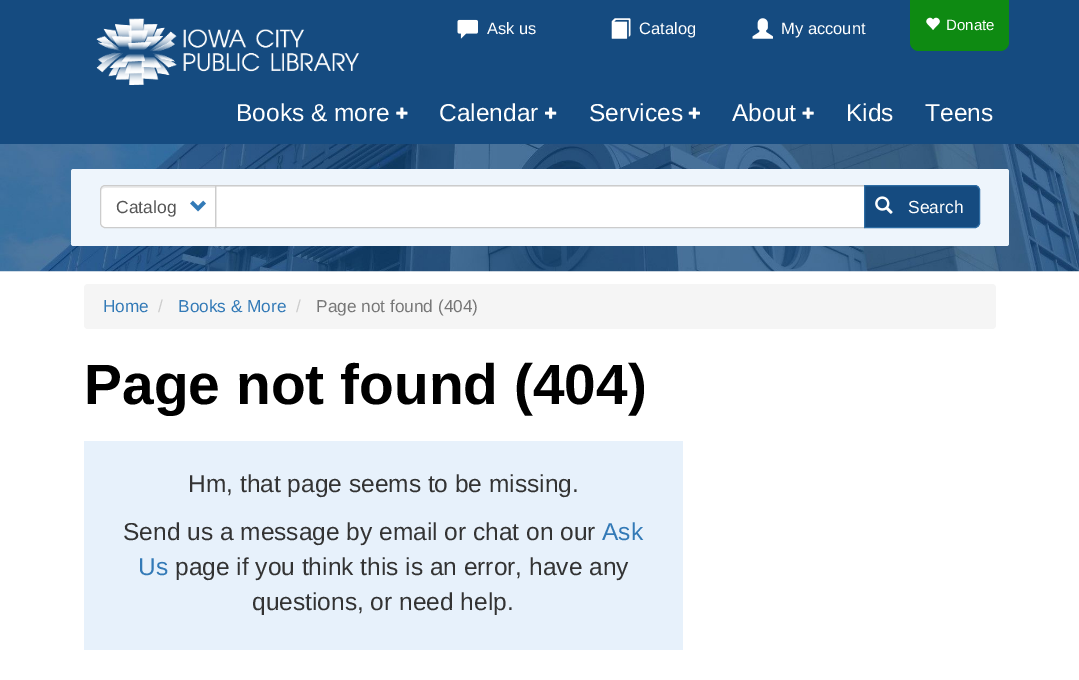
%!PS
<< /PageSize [1079 680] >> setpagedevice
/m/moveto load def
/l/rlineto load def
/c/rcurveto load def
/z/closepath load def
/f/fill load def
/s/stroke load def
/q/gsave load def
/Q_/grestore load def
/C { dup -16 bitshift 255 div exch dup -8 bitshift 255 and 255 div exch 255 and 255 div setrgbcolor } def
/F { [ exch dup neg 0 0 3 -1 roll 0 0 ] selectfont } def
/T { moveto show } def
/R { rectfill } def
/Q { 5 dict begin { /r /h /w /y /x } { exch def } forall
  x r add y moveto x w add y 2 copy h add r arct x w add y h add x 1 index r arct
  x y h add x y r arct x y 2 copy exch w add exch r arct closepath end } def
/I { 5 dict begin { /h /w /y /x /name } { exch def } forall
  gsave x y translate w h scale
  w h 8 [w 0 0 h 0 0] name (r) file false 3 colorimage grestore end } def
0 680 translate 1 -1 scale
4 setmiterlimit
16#FFFFFF C
0 0 1079 680 R
16#154B80 C
0 0 1079 144 R
(1.rgb) 96 18 263 67 I
(2.rgb) 457 19 21 20 I
/LiberationSans-Regular 16.5 F
16#FFFFFF C
(Ask us) 487 34 T
(3.rgb) 611 18 20 21 I
(Catalog) 639 34 T
(4.rgb) 752 18 21 21 I
(My account) 781 34 T
16#0E8A12 C
910 0 m 99 0 l 0 42 l 0 5 -4 9 -9 9 c -81 0 l -5 0 -9 -4 -9 -9 c z f
(5.rgb) 926 17 14 13 I
/LiberationSans-Regular 15 F
16#FFFFFF C
(Donate) 946 30 T
/LiberationSans-Regular 24.5 F
(Books & more) 236 121 T
(6.rgb) 396 107 12 12 I
(Calendar) 439 121 T
(7.rgb) 545 107 12 12 I
(Services) 589 121 T
(8.rgb) 688 107 12 12 I
(About) 732 121 T
(9.rgb) 802 107 12 12 I
(Kids) 846 121 T
(Teens) 925 121 T
(10.rgb) 0 144 1079 128 I
16#EEF5FC C
71 169 938 77 2.5 Q f
16#FFFFFF C
216 187 648 40 R
16#ECECEC C
216 186 648 1 R
16#CCCCCC C
215.5 185.5 649 42 rectstroke
16#FFFFFF C
105 185 m 111 0 l 0 43 l -111 0 l -3 0 -5 -2 -5 -5 c 0 -33 l 0 -3 2 -5 5 -5 c z f
16#ECECEC C
105 188 m 110 0 l 0 -2 l -110 0 l -2 0 -4 2 -4 4 c 0 1 l 0 -2 2 -3 4 -3 c z f
16#CCCCCC C
105 185.5 m 110.5 0 l 0 42 l -110.5 0 l -2.5 0 -4.5 -2 -4.5 -4.5 c 0 -33 l 0 -2.5 2 -4.5 4.5 -4.5 c z s
/LiberationSans-Regular 17.5 F
16#555555 C
(Catalog) 116 213 T
(11.rgb) 190 200 16 12 I
16#154B80 C
864.5 185.5 m 110.5 0 l 2.5 0 4.5 2 4.5 4.5 c 0 33 l 0 2.5 -2 4.5 -4.5 4.5 c -110.5 0 l z q f Q_
16#2E6DA4 C
s
(12.rgb) 875 196 18 18 I
16#FFFFFF C
(Search) 908 213 T
16#F5F5F5 C
84 284 912 45 4 Q f
/LiberationSans-Regular 17.25 F
16#337AB7 C
(Home) 103 312 T
16#CCCCCC C
(/) 158 312 T
16#337AB7 C
(Books & More) 178 312 T
16#CCCCCC C
(/) 296 312 T
16#777777 C
(Page not found \(404\)) 316 312 T
/LiberationSans-Bold 56.9 F
16#000000 C
(Page not found \(404\)) 84 404 T
16#E7F1FB C
84 441 599 209 R
/LiberationSans-Regular 24.5 F
16#333333 C
(Hm, that page seems to be missing.) 188 492 T
(Send us a message by email or chat on our) 123 540 T
16#337AB7 C
(Ask) 602 540 T
(Us) 138 575 T
16#333333 C
(page if you think this is an error, have any) 175 575 T
(questions, or need help.) 252 610 T
showpage
